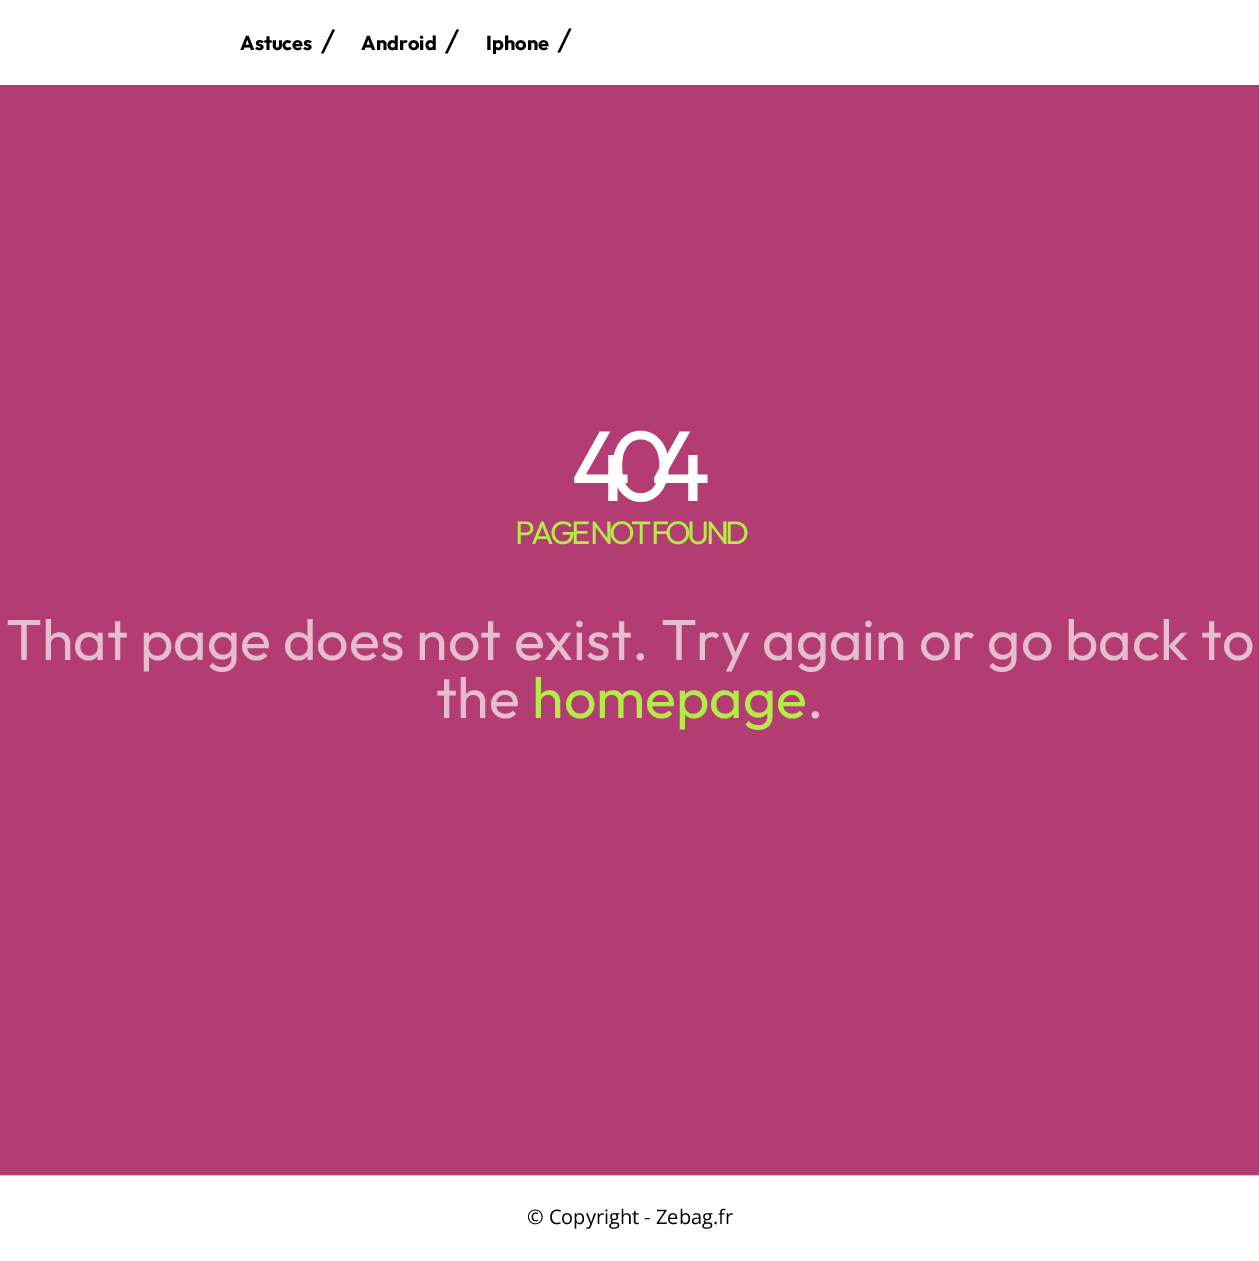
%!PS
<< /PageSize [1259 1261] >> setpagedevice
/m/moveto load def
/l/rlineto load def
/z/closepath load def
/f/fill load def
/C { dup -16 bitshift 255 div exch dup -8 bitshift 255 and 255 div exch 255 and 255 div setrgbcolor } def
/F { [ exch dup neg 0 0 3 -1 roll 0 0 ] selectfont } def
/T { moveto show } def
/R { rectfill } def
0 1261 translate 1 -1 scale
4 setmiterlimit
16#FFFFFF C
0 0 1259 1261 R
/Outfit-Bold 20 F
16#000000 C
(Astuces) 240 50 T
332.5 29.5 m -11.5 24 l 2.5 0 l 11.5 -24 l z f
(Android) 361 50 T
456.5 29.5 m -11.5 24 l 2.5 0 l 11.5 -24 l z f
(Iphone) 486 50 T
569 28.5 m -11.5 24 l 2.5 0 l 11.5 -24 l z f
16#B33D72 C
0 85 1259 1090 R
/Outfit-Regular 100 F
16#FFFFFF C
571 501 m -22.5 0 (404) ashow
/Outfit-Regular 32.5 F
16#B3EB48 C
515 544 m -3.75 0 (PAGE NOT FOUND) ashow
/Outfit-Regular 57.5 F
16#E5BDCF C
(That page does not exist. Try again or go back to) 6 660 T
(the) 436 718 T
16#B3EB48 C
(homepage) 532 718 T
16#E5BDCF C
(.) 807 718 T
16#CCCCCC C
0 1175 1259 1 R
/OpenSans-Regular 20 F
16#000000 C
(© Copyright - Zebag.fr) 527 1224 T
showpage
